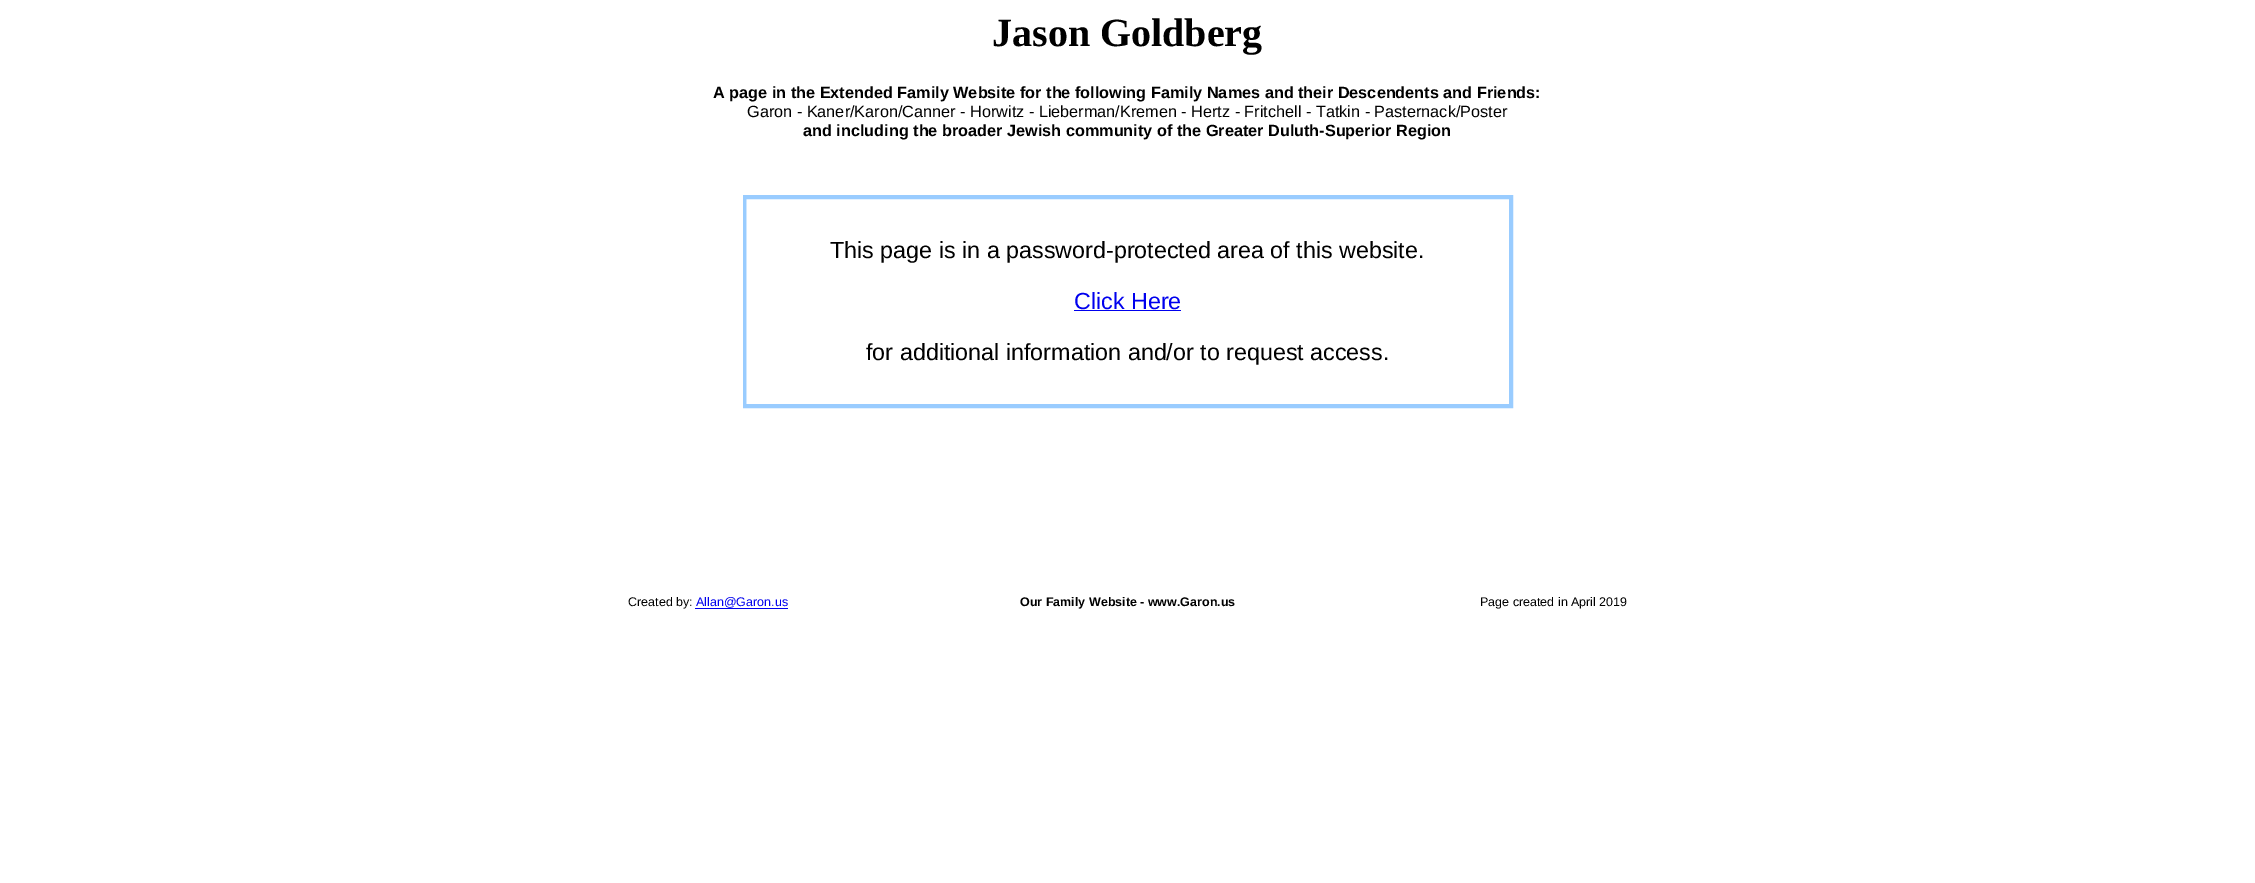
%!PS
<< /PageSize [2255 883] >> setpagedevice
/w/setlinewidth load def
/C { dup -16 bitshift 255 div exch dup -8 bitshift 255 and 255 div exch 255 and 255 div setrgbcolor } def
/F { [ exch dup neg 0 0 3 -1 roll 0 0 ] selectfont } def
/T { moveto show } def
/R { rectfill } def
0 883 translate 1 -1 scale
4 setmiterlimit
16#FFFFFF C
0 0 2255 883 R
/LiberationSerif-Bold 40 F
16#000000 C
(Jason Goldberg) 992 46 T
/LiberationSans-Bold 16.25 F
(A page in the Extended Family Website for the following Family Names and their Descendents and Friends:) 713 98 T
/LiberationSans-Regular 16.25 F
(Garon - Kaner/Karon/Canner - Horwitz - Lieberman/Kremen - Hertz - Fritchell - Tatkin - Pasternack/Poster) 747 117 T
/LiberationSans-Bold 16.25 F
(and including the broader Jewish community of the Greater Duluth-Superior Region) 803 136 T
16#99CCFF C
3 w
744.5 196.5 767 210 rectstroke
1 w
745.5 198.5 764 206 rectstroke
/LiberationSans-Regular 23.3 F
16#000000 C
(This page is in a password-protected area of this website.) 830 258 T
16#0000EE C
(Click Here) 1074 309 T
1074 310 107 1 R
16#000000 C
(for additional information and/or to request access.) 866 360 T
/LiberationSans-Regular 12.5 F
(Created by:) 628 606 T
16#0000EE C
(Allan@Garon.us) 696 606 T
695 608 93 1 R
/LiberationSans-Bold 12.5 F
16#000000 C
(Our Family Website - www.Garon.us) 1020 606 T
/LiberationSans-Regular 12.5 F
(Page created in April 2019) 1480 606 T
showpage
